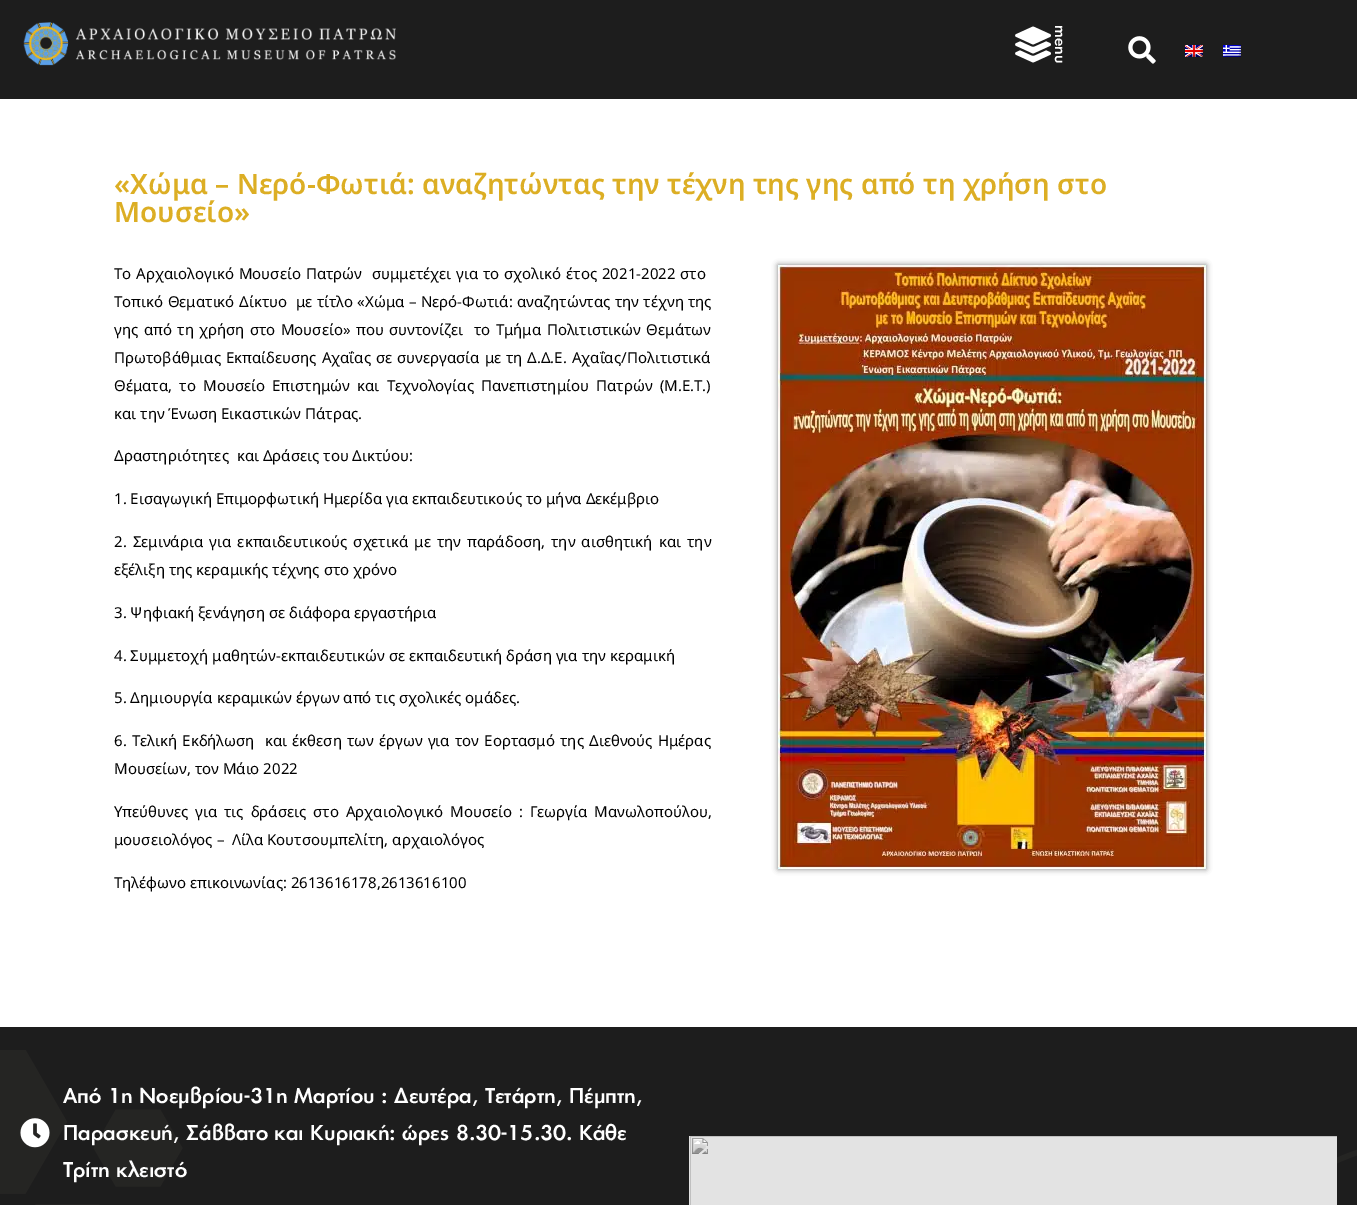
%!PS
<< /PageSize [1357 1205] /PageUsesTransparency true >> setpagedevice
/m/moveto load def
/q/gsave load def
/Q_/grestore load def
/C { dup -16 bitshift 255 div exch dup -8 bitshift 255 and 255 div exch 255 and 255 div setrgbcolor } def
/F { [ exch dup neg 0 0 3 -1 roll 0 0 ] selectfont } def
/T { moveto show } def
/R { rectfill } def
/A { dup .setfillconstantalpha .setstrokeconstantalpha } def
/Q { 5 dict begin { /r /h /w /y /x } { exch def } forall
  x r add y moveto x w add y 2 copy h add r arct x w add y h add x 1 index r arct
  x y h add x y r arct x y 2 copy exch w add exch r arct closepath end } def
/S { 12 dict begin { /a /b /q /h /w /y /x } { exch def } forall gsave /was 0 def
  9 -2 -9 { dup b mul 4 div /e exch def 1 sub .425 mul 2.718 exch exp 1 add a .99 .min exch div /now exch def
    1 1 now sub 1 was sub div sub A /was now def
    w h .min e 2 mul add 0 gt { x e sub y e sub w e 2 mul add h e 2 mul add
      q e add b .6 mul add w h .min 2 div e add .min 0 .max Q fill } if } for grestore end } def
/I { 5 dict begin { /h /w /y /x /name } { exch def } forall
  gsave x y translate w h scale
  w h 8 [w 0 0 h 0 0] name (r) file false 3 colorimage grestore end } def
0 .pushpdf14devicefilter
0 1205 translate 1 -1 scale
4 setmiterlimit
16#FFFFFF C
0 0 1357 1205 R
16#1D1D1D C
0 0 1357 99 R
(1.rgb) 23 22 373 44 I
(2.rgb) 1015 26 36 37 I
/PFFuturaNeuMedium-Medium 14.5 F
16#FFFFFF C
q 1055 25 translate 90 rotate 0 0 m (menu) show Q_
(3.rgb) 1128 36 28 28 I
(4.rgb) 1185 45 18 12 I
(5.rgb) 1223 45 18 12 I
/NotoSans-SemiBold 28 F
16#DCAE24 C
(«Χώμα – Νερό-Φωτιά: αναζητώντας την τέχνη της γης από τη χρήση στο) 114 194 T
(Μουσείο») 114 222 T
/NotoSans-Regular 15 F
16#000000 C
114 279 m 1 0 32 (Το Αρχαιολογικό Μουσείο Πατρών  συμμετέχει για το σχολικό έτος 2021-2022 στο) widthshow
114 307 m .5 0 32 (Τοπικό Θεματικό Δίκτυο  με τίτλο «Χώμα – Νερό-Φωτιά: αναζητώντας την τέχνη της) widthshow
114 335 m 1.5 0 32 (γης από τη χρήση στο Μουσείο» που συντονίζει  το Τμήμα Πολιτιστικών Θεμάτων) widthshow
114 363 m 1 0 32 (Πρωτοβάθμιας Εκπαίδευσης Αχαΐας σε συνεργασία με τη Δ.Δ.Ε. Αχαΐας/Πολιτιστικά) widthshow
114 391 m 3.25 0 32 (Θέματα, το Μουσείο Επιστημών και Τεχνολογίας Πανεπιστημίου Πατρών \(Μ.Ε.Τ.\)) widthshow
(και την Ένωση Εικαστικών Πάτρας.) 114 419 T
(Δραστηριότητες  και Δράσεις του Δικτύου:) 114 461 T
(1. Εισαγωγική Επιμορφωτική Ημερίδα για εκπαιδευτικούς το μήνα Δεκέμβριο) 114 504 T
114 547 m 2.25 0 32 (2. Σεμινάρια για εκπαιδευτικούς σχετικά με την παράδοση, την αισθητική και την) widthshow
(εξέλιξη της κεραμικής τέχνης στο χρόνο) 114 575 T
(3. Ψηφιακή ξενάγηση σε διάφορα εργαστήρια) 114 618 T
(4. Συμμετοχή μαθητών-εκπαιδευτικών σε εκπαιδευτική δράση για την κεραμική) 114 661 T
(5. Δημιουργία κεραμικών έργων από τις σχολικές ομάδες.) 114 703 T
114 746 m 1.25 0 32 (6. Τελική Εκδήλωση  και έκθεση των έργων για τον Εορτασμό της Διεθνούς Ημέρας) widthshow
(Μουσείων, τον Μάιο 2022) 114 774 T
114 817 m 3 0 32 (Υπεύθυνες για τις δράσεις στο Αρχαιολογικό Μουσείο : Γεωργία Μανωλοπούλου,) widthshow
(μουσειολόγος –  Λίλα Κουτσουμπελίτη, αρχαιολόγος) 114 845 T
(Τηλέφωνο επικοινωνίας: 2613616178,2613616100) 114 888 T
778 265 428 604 0 3 .5 S
(6.rgb) 778 265 428 604 I
16#1D1D1D C
0 1027 1357 178 R
(7.rgb) 0 1050 1357 155 I
(8.rgb) 20 1118 30 30 I
/PFFuturaNeuMedium-Medium 19.8 F
16#FFFFFF C
(Από 1η Νοεμβρίου-31η Μαρτίου : Δευτέρα, Τετάρτη, Πέμπτη,) 63 1103 T
(Παρασκευή, Σάββατο και Κυριακή: ώρες 8.30-15.30. Κάθε) 63 1140 T
(Τρίτη κλειστό) 63 1177 T
(9.rgb) 689 1136 648 69 I
.poppdf14devicefilter showpage
